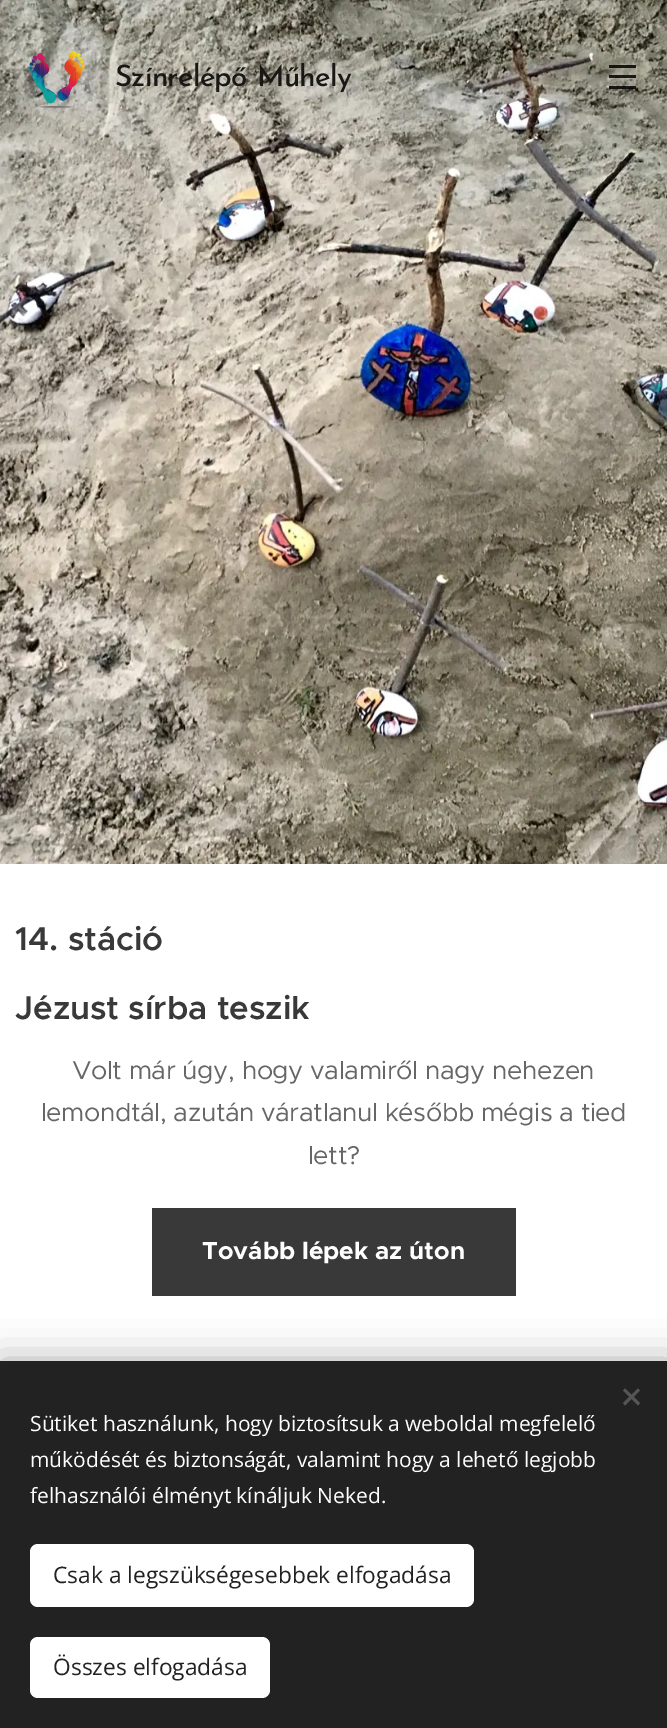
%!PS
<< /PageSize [667 1728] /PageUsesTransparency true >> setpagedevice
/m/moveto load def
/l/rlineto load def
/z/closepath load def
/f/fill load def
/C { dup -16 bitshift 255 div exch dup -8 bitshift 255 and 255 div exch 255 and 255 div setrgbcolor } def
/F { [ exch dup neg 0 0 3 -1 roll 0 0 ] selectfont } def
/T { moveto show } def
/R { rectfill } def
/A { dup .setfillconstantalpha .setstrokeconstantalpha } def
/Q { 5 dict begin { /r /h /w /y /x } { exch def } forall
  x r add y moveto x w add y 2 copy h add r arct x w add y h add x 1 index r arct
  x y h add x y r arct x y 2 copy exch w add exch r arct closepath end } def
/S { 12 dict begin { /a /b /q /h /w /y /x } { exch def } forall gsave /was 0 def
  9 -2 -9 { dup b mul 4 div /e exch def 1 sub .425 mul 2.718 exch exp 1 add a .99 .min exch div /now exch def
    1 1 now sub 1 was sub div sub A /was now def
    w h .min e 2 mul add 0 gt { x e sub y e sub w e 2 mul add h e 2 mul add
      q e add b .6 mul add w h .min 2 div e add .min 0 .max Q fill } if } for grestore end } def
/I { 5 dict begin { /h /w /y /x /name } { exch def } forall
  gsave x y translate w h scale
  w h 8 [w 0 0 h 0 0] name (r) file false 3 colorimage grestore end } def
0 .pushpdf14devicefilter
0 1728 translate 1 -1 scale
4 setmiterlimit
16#FFFFFF C
0 0 667 1728 R
(2.rgb) 0 0 667 864 I
(1.rgb) 28 50 57 58 I
/JosefinSans-Medium 29.5 F
16#191817 C
115 86 m -.75 0 (Színrelépő) ashow
257 86 m -.75 0 (Műhely) ashow
0.85 A
16#000000 C
609 75 27 3 R
609 65 27 3 R
609 86 27 3 R
/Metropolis-SemiBold 33 F
1 A
16#393939 C
(14. stáció) 15 950 T
(Jézust sírba teszik) 15 1019 T
/Metropolis-Regular 25.8 F
16#666666 C
72 1079 m -.4 0 (Volt már úgy, hogy valamiről nagy nehezen) ashow
41 1121 m -.4 0 (lemondtál, azután váratlanul később mégis a tied) ashow
308 1164 m -.4 0 (lett?) ashow
16#393939 C
152 1208 364 88 R
/Metropolis-Bold 24.6 F
16#FFFFFF C
(Tovább lépek az úton) 202 1259 T
16#000000 C
0 1361 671 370 0 19 .33 S
16#222222 C
0 1361 667 367 R
16#555555 C
623 1403 m 15 -14.5 l 2 2 l -15 15 l z f
625 1388.5 m 15 14.5 l -2 2.5 l -15 -15 l z f
/OpenSans-Regular 21 F
16#FFFFFF C
(Sütiket használunk, hogy biztosítsuk a weboldal megfelelő) 30 1431 T
(működését és biztonságát, valamint hogy a lehető legjobb) 30 1467 T
(felhasználói élményt kínáljuk Neked.) 30 1503 T
30 1544 444 63 8 Q f
/OpenSans-Regular 22.75 F
16#222222 C
(Csak a legszükségesebbek elfogadása) 53 1583 T
16#FFFFFF C
30 1637 240 61 8 Q f
16#222222 C
(Összes elfogadása) 53 1675 T
.poppdf14devicefilter showpage
